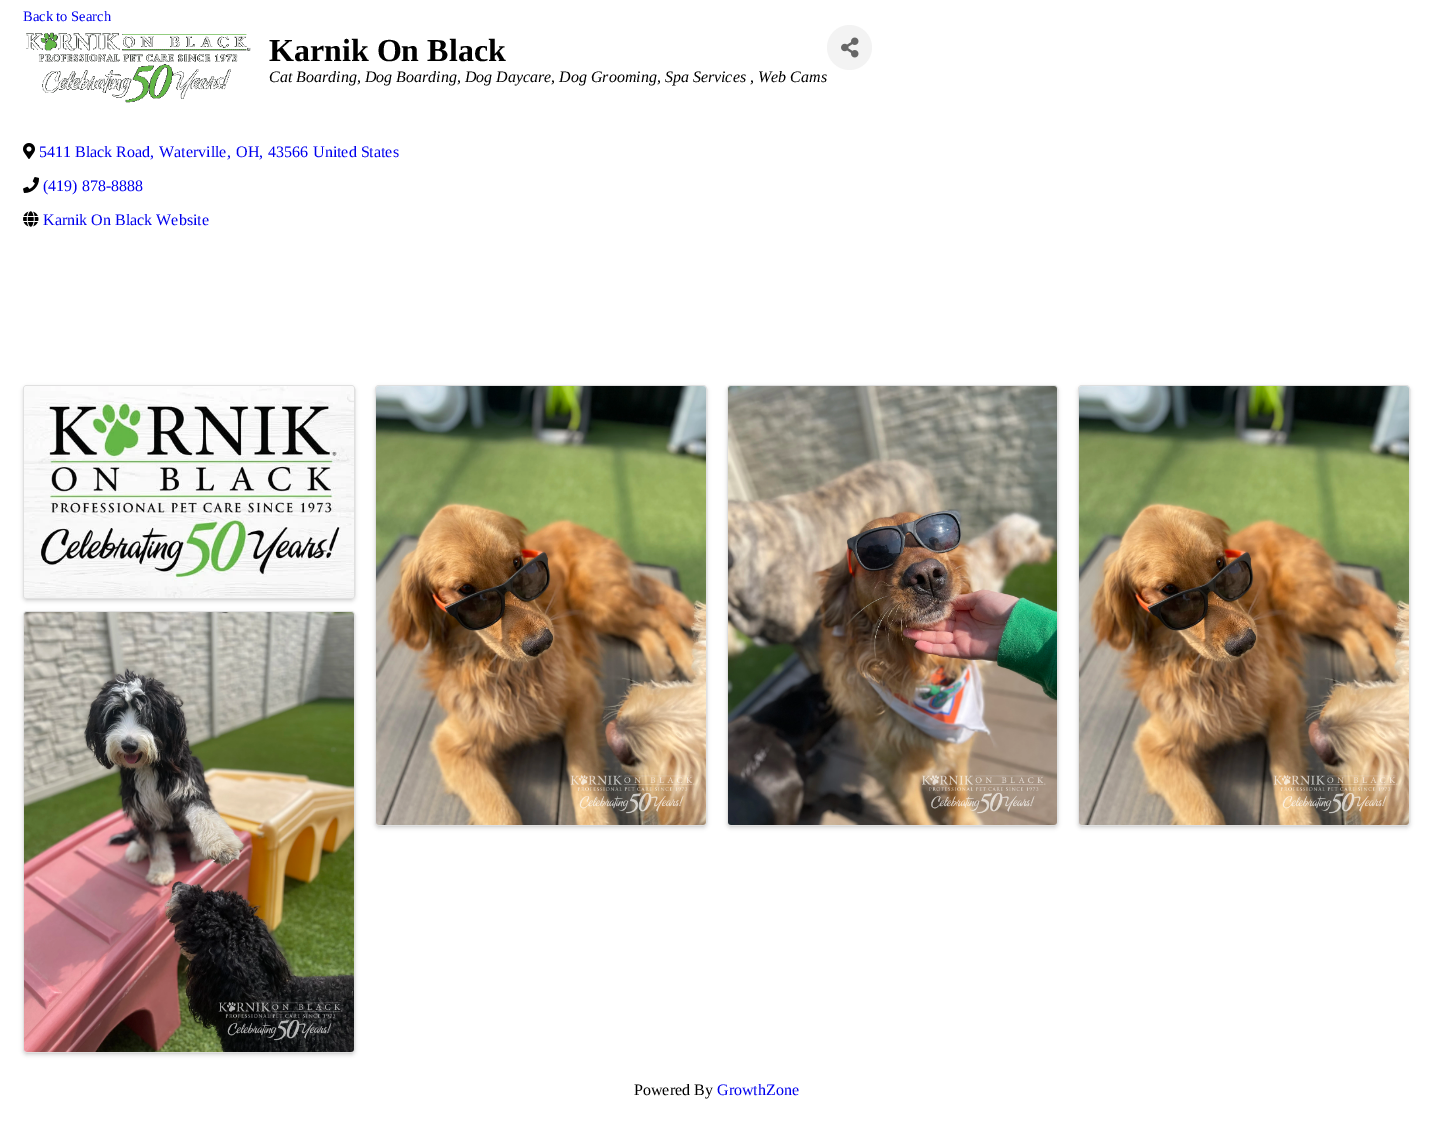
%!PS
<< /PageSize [1433 1140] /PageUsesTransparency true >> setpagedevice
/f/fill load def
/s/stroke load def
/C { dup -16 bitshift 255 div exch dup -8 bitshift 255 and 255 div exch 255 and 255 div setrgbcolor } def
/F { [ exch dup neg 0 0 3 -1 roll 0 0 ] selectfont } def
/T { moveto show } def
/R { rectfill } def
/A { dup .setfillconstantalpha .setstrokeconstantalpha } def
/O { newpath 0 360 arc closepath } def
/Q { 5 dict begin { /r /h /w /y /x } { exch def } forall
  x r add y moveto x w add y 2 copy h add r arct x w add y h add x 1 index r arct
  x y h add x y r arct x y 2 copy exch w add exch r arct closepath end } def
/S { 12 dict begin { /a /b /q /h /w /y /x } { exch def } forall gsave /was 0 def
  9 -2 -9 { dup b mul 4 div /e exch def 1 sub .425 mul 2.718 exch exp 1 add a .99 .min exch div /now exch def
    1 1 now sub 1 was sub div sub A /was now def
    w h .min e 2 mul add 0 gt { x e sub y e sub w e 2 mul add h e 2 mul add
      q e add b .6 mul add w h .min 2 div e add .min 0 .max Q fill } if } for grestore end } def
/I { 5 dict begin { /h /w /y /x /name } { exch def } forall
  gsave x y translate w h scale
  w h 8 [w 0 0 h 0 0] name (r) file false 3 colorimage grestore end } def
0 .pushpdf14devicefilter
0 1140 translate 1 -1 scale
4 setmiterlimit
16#FFFFFF C
0 0 1433 1140 R
/LiberationSerif-Regular 14.5 F
16#0000EE C
(Back to Search) 23 21 T
(1.rgb) 26 32 225 71 I
/LiberationSerif-Bold 32 F
16#000000 C
(Karnik On Black) 269 61 T
/LiberationSerif-Italic 16 F
(Cat Boarding, Dog Boarding, Dog Daycare, Dog Grooming, Spa Services , Web Cams) 269 82 T
16#F3F3F3 C
849.5 47.5 22.5 O f
(2.rgb) 841 37 18 21 I
(3.rgb) 23 143 12 16 I
/LiberationSerif-Regular 16 F
16#0000EE C
(5411 Black Road,) 39 157 T
(Waterville,) 159 157 T
(OH,) 236 157 T
(43566) 268 157 T
(United States) 313 157 T
(4.rgb) 23 177 16 16 I
(\(419\) 878-8888) 43 191 T
(5.rgb) 23 211 16 16 I
(Karnik On Black Website) 43 225 T
16#000000 C
23 387 332 214 4 2 .15 S
16#FFFFFF C
23 385 332 214 4 Q f
0.12 A
16#000000 C
23.5 385.5 331 213 3.5 Q s
1 A
(6.rgb) 24 386 330 212 I
375 387 332 441 4 2 .15 S
16#FFFFFF C
375 385 332 441 4 Q f
0.12 A
16#000000 C
375.5 385.5 331 440 3.5 Q s
1 A
(7.rgb) 376 386 330 439 I
727 387 331 441 4 2 .15 S
16#FFFFFF C
727 385 331 441 4 Q f
0.12 A
16#000000 C
727.5 385.5 330 440 3.5 Q s
1 A
(8.rgb) 728 386 329 439 I
1078 387 332 441 4 2 .15 S
16#FFFFFF C
1078 385 332 441 4 Q f
0.12 A
16#000000 C
1078.5 385.5 331 440 3.5 Q s
1 A
(7.rgb) 1079 386 330 439 I
23 613 332 442 4 2 .15 S
16#FFFFFF C
23 611 332 442 4 Q f
0.12 A
16#000000 C
23.5 611.5 331 441 3.5 Q s
1 A
(9.rgb) 24 612 330 440 I
(Powered By) 634 1095 T
16#0000EE C
(GrowthZone) 717 1095 T
.poppdf14devicefilter showpage
